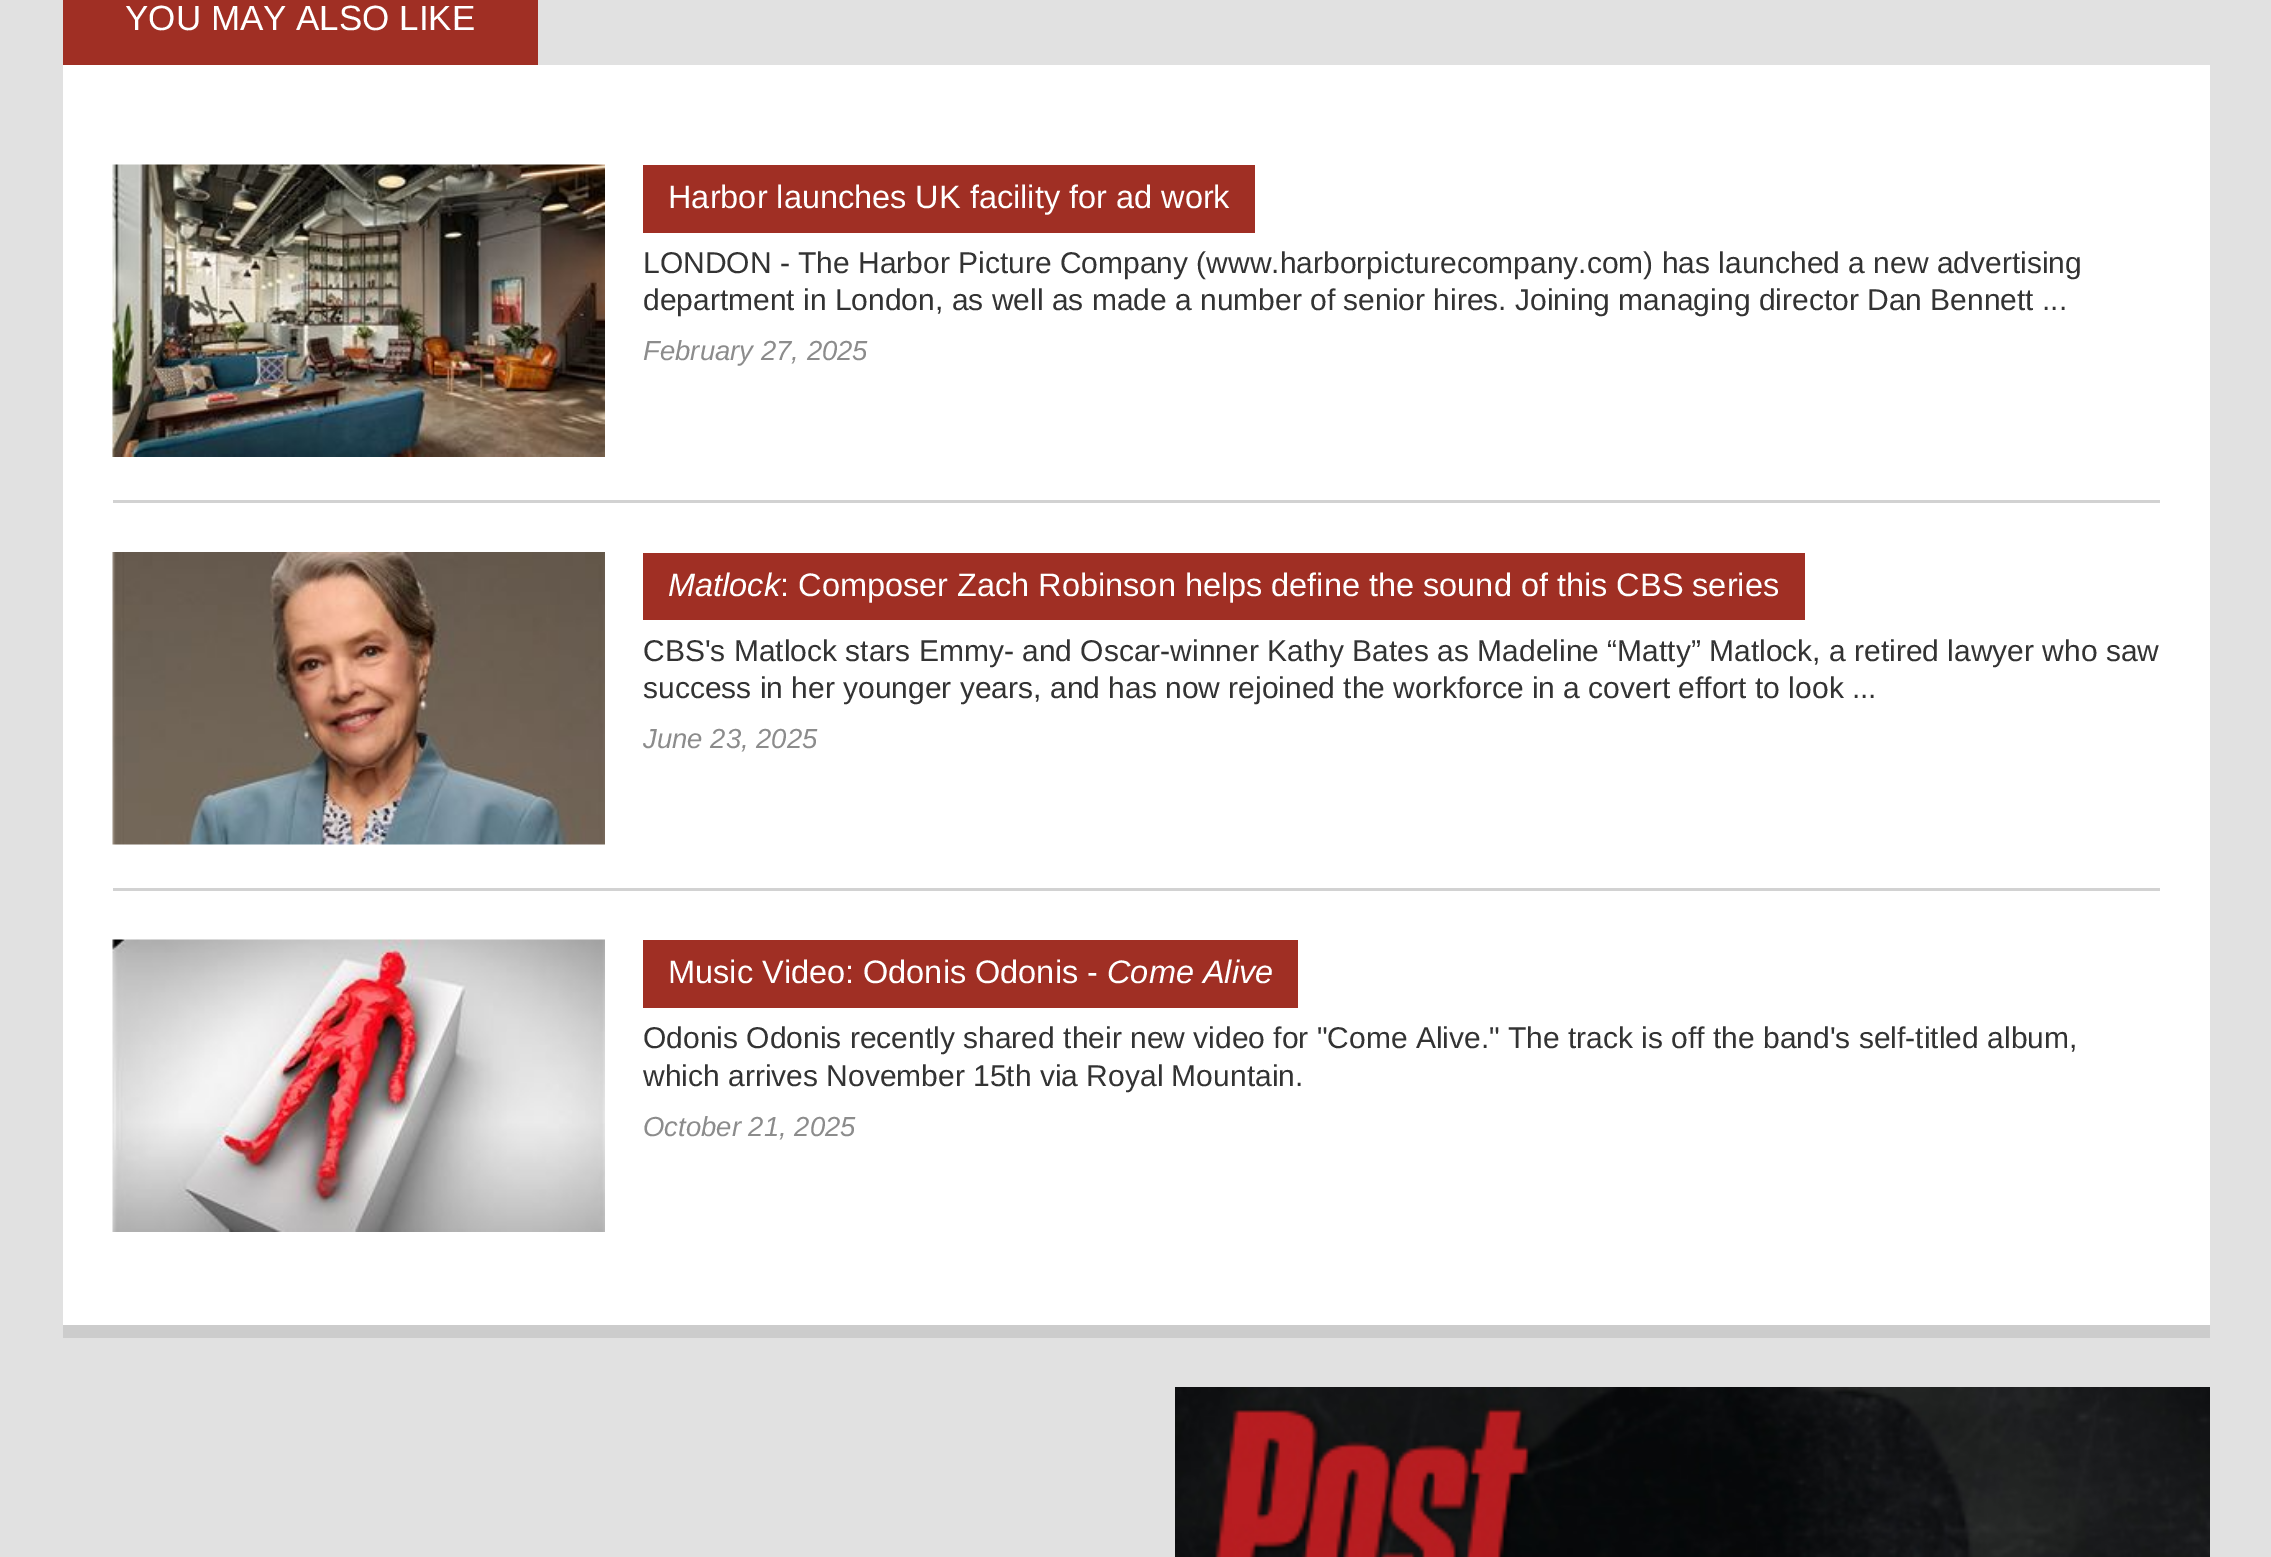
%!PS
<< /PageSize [2271 1557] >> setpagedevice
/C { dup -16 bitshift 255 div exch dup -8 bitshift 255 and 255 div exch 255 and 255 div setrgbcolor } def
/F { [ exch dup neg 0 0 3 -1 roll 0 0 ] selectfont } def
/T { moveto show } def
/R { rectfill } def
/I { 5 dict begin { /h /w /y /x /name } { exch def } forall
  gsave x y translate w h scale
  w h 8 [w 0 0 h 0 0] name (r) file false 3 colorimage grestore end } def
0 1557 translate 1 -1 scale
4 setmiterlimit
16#E1E1E1 C
0 0 2271 1557 R
16#A02F24 C
63 0 475 65 R
/LiberationSans-Regular 35 F
16#FFFFFF C
(YOU MAY ALSO LIKE) 125 30 T
63 65 2147 1260 R
16#CCCCCC C
63 1325 2147 13 R
(1.rgb) 112 164 493 293 I
16#A02F24 C
643 165 612 68 R
/LiberationSans-Regular 32.5 F
16#FFFFFF C
(Harbor launches UK facility for ad work) 668 208 T
/LiberationSans-Regular 30 F
16#333333 C
(LONDON - The Harbor Picture Company \(www.harborpicturecompany.com\) has launched a new advertising) 643 273 T
(department in London, as well as made a number of senior hires. Joining managing director Dan Bennett ...) 643 310 T
/LiberationSans-Italic 27.5 F
16#8C8C8C C
(February 27, 2025) 643 360 T
16#D2D2D2 C
113 500 2047 3 R
(2.rgb) 112 552 493 293 I
16#A02F24 C
643 553 1162 67 R
/LiberationSans-Italic 32.5 F
16#FFFFFF C
(Matlock) 668 596 T
/LiberationSans-Regular 32.5 F
(: Composer Zach Robinson helps define the sound of this CBS series) 780 596 T
/LiberationSans-Regular 30 F
16#333333 C
(CBS's Matlock stars Emmy- and Oscar-winner Kathy Bates as Madeline “Matty” Matlock, a retired lawyer who saw) 643 661 T
(success in her younger years, and has now rejoined the workforce in a covert effort to look ...) 643 698 T
/LiberationSans-Italic 27.5 F
16#8C8C8C C
(June 23, 2025) 643 748 T
16#D2D2D2 C
113 888 2047 3 R
(3.rgb) 112 939 493 293 I
16#A02F24 C
643 940 655 68 R
/LiberationSans-Regular 32.5 F
16#FFFFFF C
(Music Video: Odonis Odonis -) 668 983 T
/LiberationSans-Italic 32.5 F
(Come Alive) 1107 983 T
/LiberationSans-Regular 30 F
16#333333 C
(Odonis Odonis recently shared their new video for "Come Alive." The track is off the band's self-titled album,) 643 1048 T
(which arrives November 15th via Royal Mountain.) 643 1086 T
/LiberationSans-Italic 27.5 F
16#8C8C8C C
(October 21, 2025) 643 1136 T
(4.rgb) 1175 1387 1035 170 I
showpage
